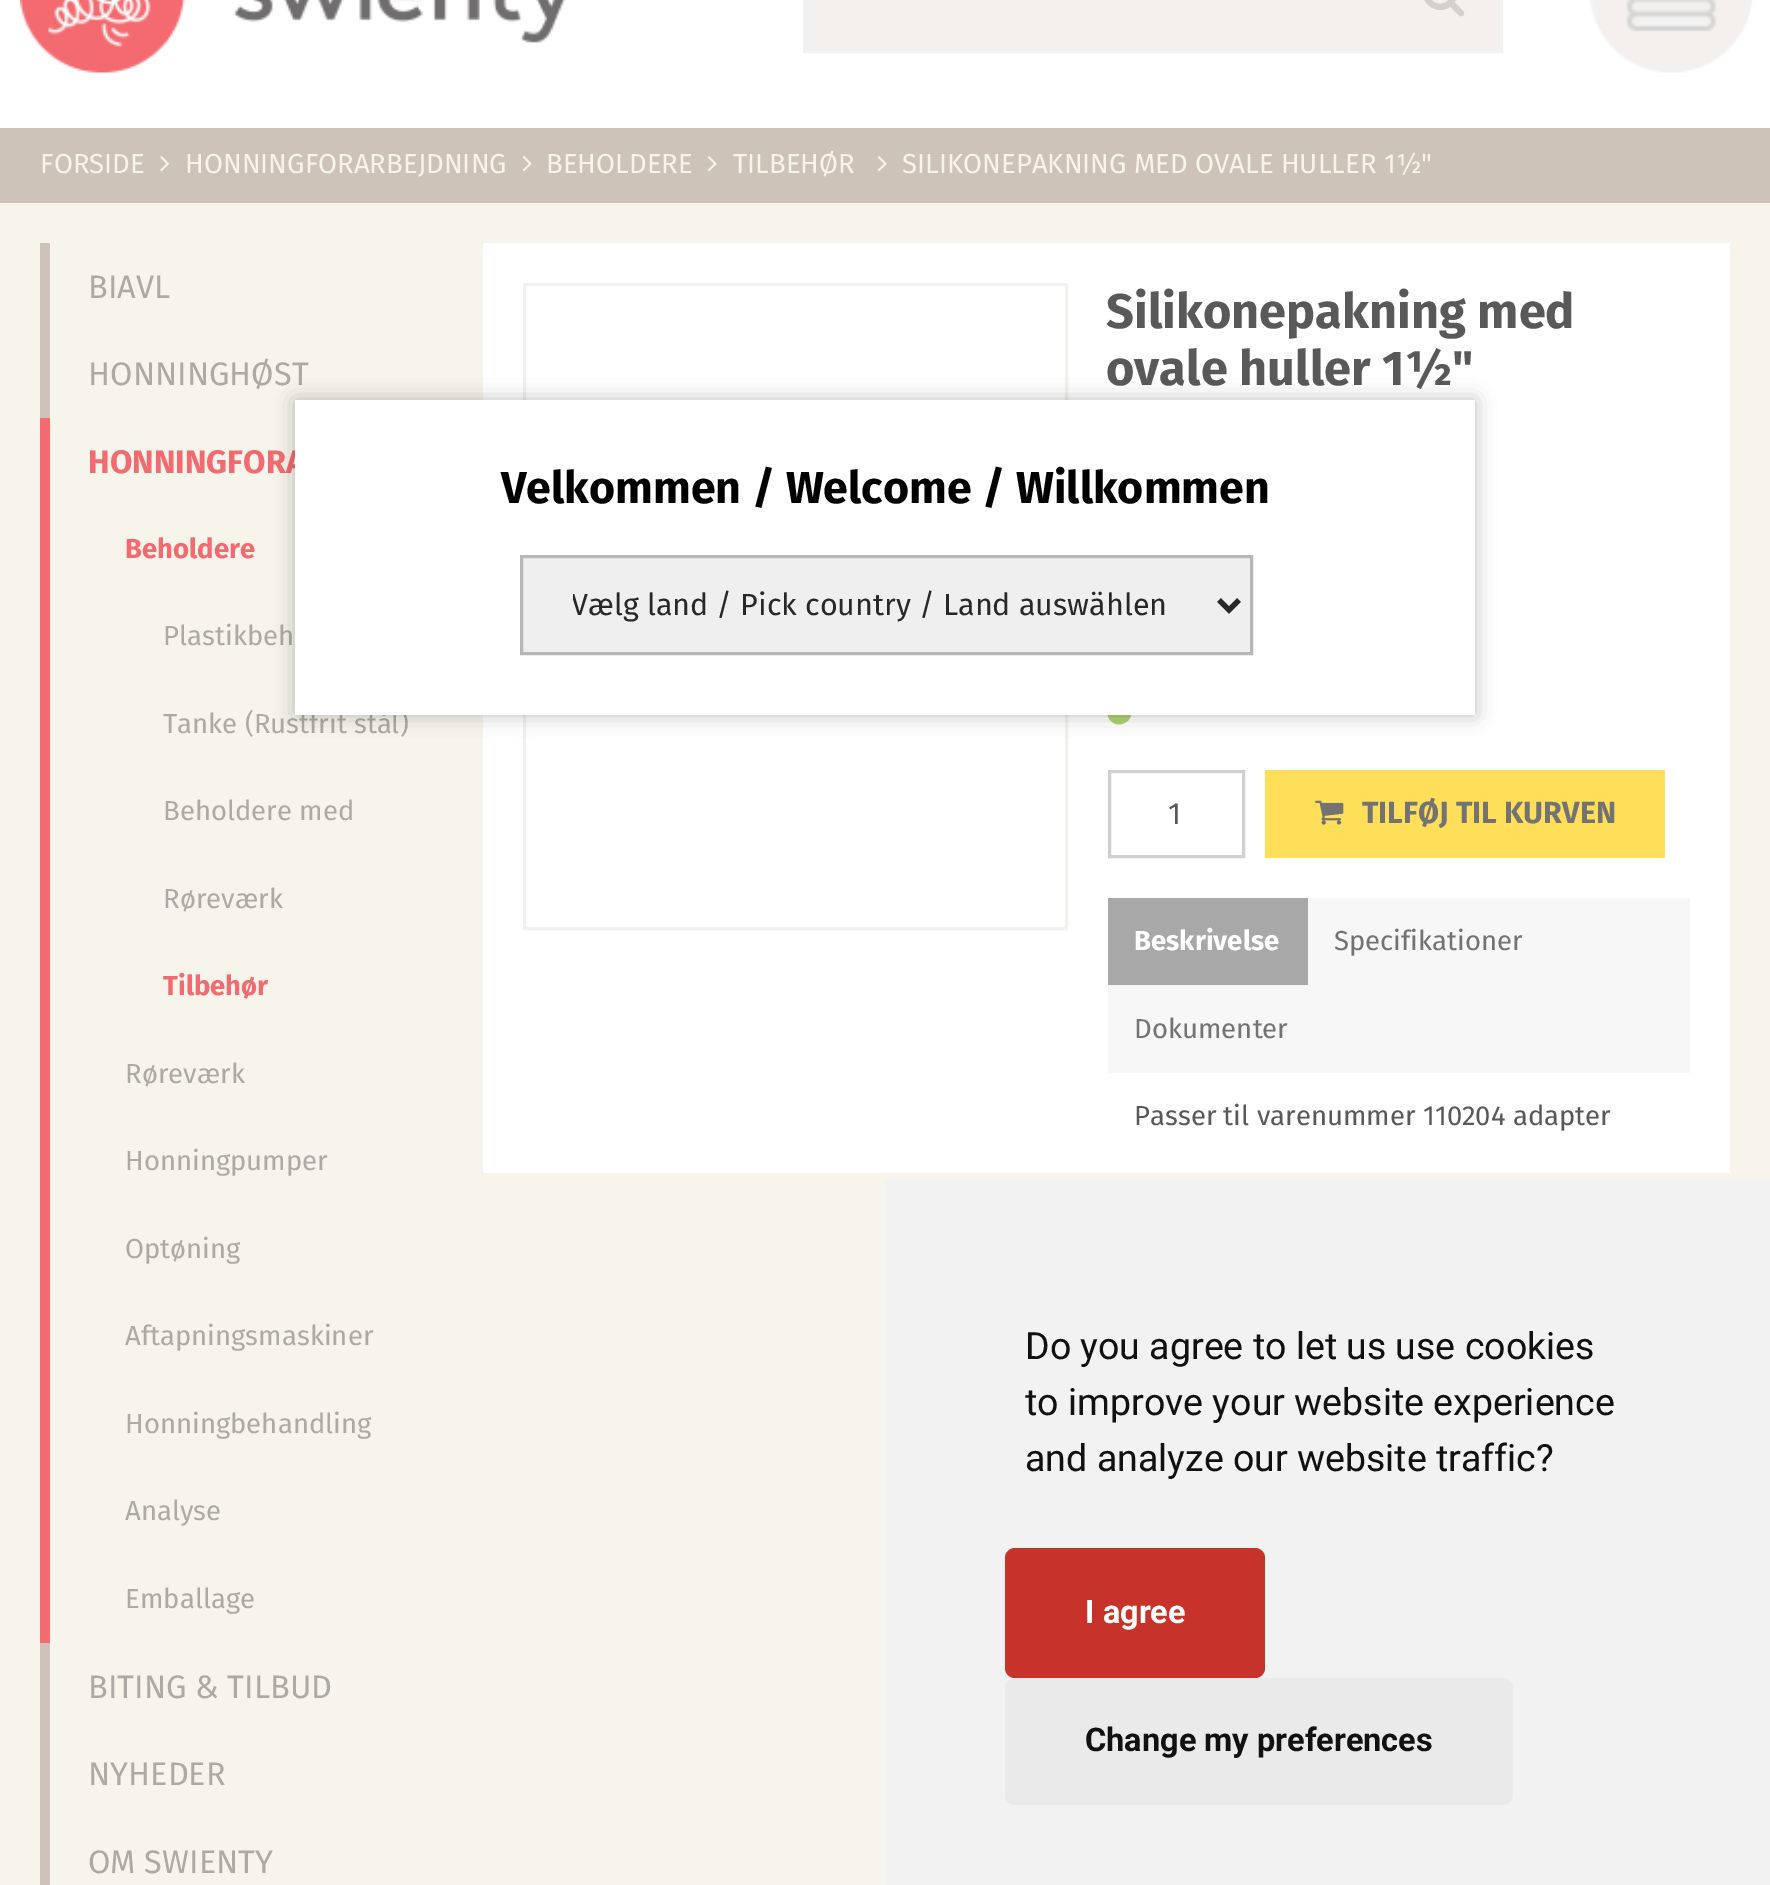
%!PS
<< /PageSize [1770 1885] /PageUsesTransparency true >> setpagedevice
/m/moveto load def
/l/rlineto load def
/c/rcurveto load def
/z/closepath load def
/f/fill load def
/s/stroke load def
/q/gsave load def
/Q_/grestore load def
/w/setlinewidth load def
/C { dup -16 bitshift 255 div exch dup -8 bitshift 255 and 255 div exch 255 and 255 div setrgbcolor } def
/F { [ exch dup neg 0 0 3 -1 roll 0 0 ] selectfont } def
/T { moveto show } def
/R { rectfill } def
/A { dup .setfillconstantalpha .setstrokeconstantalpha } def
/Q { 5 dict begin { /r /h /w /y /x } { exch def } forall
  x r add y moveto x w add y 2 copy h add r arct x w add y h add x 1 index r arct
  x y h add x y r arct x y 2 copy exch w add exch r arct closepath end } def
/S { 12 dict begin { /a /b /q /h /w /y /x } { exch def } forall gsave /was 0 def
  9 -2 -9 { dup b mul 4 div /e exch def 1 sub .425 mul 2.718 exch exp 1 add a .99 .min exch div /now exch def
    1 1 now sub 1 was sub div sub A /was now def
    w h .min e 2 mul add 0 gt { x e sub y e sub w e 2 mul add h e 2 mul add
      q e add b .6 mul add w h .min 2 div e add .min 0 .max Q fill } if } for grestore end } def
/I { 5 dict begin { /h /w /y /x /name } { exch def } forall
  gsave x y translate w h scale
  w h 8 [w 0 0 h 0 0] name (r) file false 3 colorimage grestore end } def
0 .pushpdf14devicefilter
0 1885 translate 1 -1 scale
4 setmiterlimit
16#F7F4EC C
0 0 1770 1885 R
16#FFFFFF C
0 0 1770 128 R
(1.rgb) 20 0 546 73 I
16#F3F0ED C
804.5 -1.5 m 697 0 l 0 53 l -697 0 l z q f Q_
16#F2F2F2 C
3 w
s
(2.rgb) 1424 0 41 17 I
(3.rgb) 1590 0 163 73 I
16#CDC3B8 C
0 128 1770 75 R
/FiraSans-Regular 27.5 F
16#F7F4EC C
(FORSIDE) 40 173 T
(4.rgb) 160 156 9 16 I
(HONNINGFORARBEJDNING) 185 173 T
(5.rgb) 522 156 10 16 I
(BEHOLDERE) 546 173 T
(5.rgb) 707 156 10 16 I
(TILBEHØR) 733 173 T
(5.rgb) 877 156 10 16 I
(SILIKONEPAKNING MED OVALE HULLER 1½") 902 173 T
16#CDC3B8 C
40 243 10 175 R
/FiraSans-Regular 32.5 F
16#ADA9A5 C
(BIAVL) 88 298 T
(HONNINGHØST) 88 385 T
16#F36B71 C
40 418 10 1225 R
/FiraSans-Bold 32.5 F
(HONNINGFORA) 88 473 T
/FiraSans-Bold 27.5 F
(Beholdere) 125 558 T
/FiraSans-Regular 27.5 F
16#ADA9A5 C
(Plastikbeh) 163 645 T
(Tanke \(Rustfrit stål\)) 163 733 T
(Beholdere med) 163 820 T
(Røreværk) 163 908 T
/FiraSans-Bold 27.5 F
16#F36B71 C
(Tilbehør) 163 995 T
/FiraSans-Regular 27.5 F
16#ADA9A5 C
(Røreværk) 125 1083 T
(Honningpumper) 125 1170 T
(Optøning) 125 1258 T
(Aftapningsmaskiner) 125 1345 T
(Honningbehandling) 125 1433 T
(Analyse) 125 1520 T
(Emballage) 125 1608 T
16#CDC3B8 C
40 1643 10 242 R
/FiraSans-Regular 32.5 F
16#ADA9A5 C
(BITING & TILBUD) 88 1698 T
(NYHEDER) 88 1785 T
(OM SWIENTY) 88 1873 T
16#FFFFFF C
483 243 1247 930 R
16#F3F0ED C
524.5 284.5 542 644 rectstroke
/FiraSans-Bold 48.75 F
16#595959 C
(Silikonepakning med) 1106 328 T
(ovale huller 1½") 1106 385 T
16#B0D371 C
1129.5 707 m 8 13 -12.5 25 -20.5 11.5 c -7.5 -13.5 12.5 -25 20.5 -11.5 c z f
16#D0D0D0 C
1109.5 771.5 134 85 rectstroke
/FiraSans-Regular 30.5 F
16#595959 C
(1) 1168 824 T
16#FFDE59 C
1265 770 400 88 R
(6.rgb) 1315 800 29 25 I
/FiraSans-Bold 30.5 F
16#737373 C
(TILFØJ TIL KURVEN) 1362 823 T
16#F7F7F7 C
1108 898 582 175 R
16#A8A8A8 C
1108 898 200 87 R
/FiraSans-Bold 27.5 F
16#FFFFFF C
(Beskrivelse) 1134 950 T
/FiraSans-Regular 27.5 F
16#737373 C
(Specifikationer) 1334 950 T
(Dokumenter) 1134 1038 T
16#595959 C
(Passer til varenummer 110204 adapter) 1134 1125 T
16#000000 C
295 400 1180 315 0 10 .25 S
16#FFFFFF C
295 400 1180 315 R
/FiraSans-Bold 44.7 F
16#000000 C
(Velkommen / Welcome / Willkommen) 501 503 T
16#EFEFEF C
521.5 556.5 m 730 0 l 0 97 l -730 0 l z q f Q_
16#B7B7B7 C
s
16#282828 C
5 w
1219 600 m 10 10 l 10 -10 l s
q
573 585 597 40 rectclip
/FiraSans-Regular 30.5 F
(Vælg land / Pick country / Land auswählen) 571 615 T
Q_
16#F2F2F2 C
885 1180 885 705 R
/Roboto-Regular 37.5 F
16#111111 C
(Do you agree to let us use cookies) 1025 1359 T
(to improve your website experience) 1025 1415 T
(and analyze our website traffic?) 1025 1471 T
16#C7322A C
1005 1548 260 130 10 Q f
/Roboto-Bold 32.5 F
16#FFFFFF C
(I agree) 1085 1623 T
16#EAEAEA C
1005 1678 508 127 10 Q f
16#111111 C
(Change my preferences) 1085 1751 T
.poppdf14devicefilter showpage
